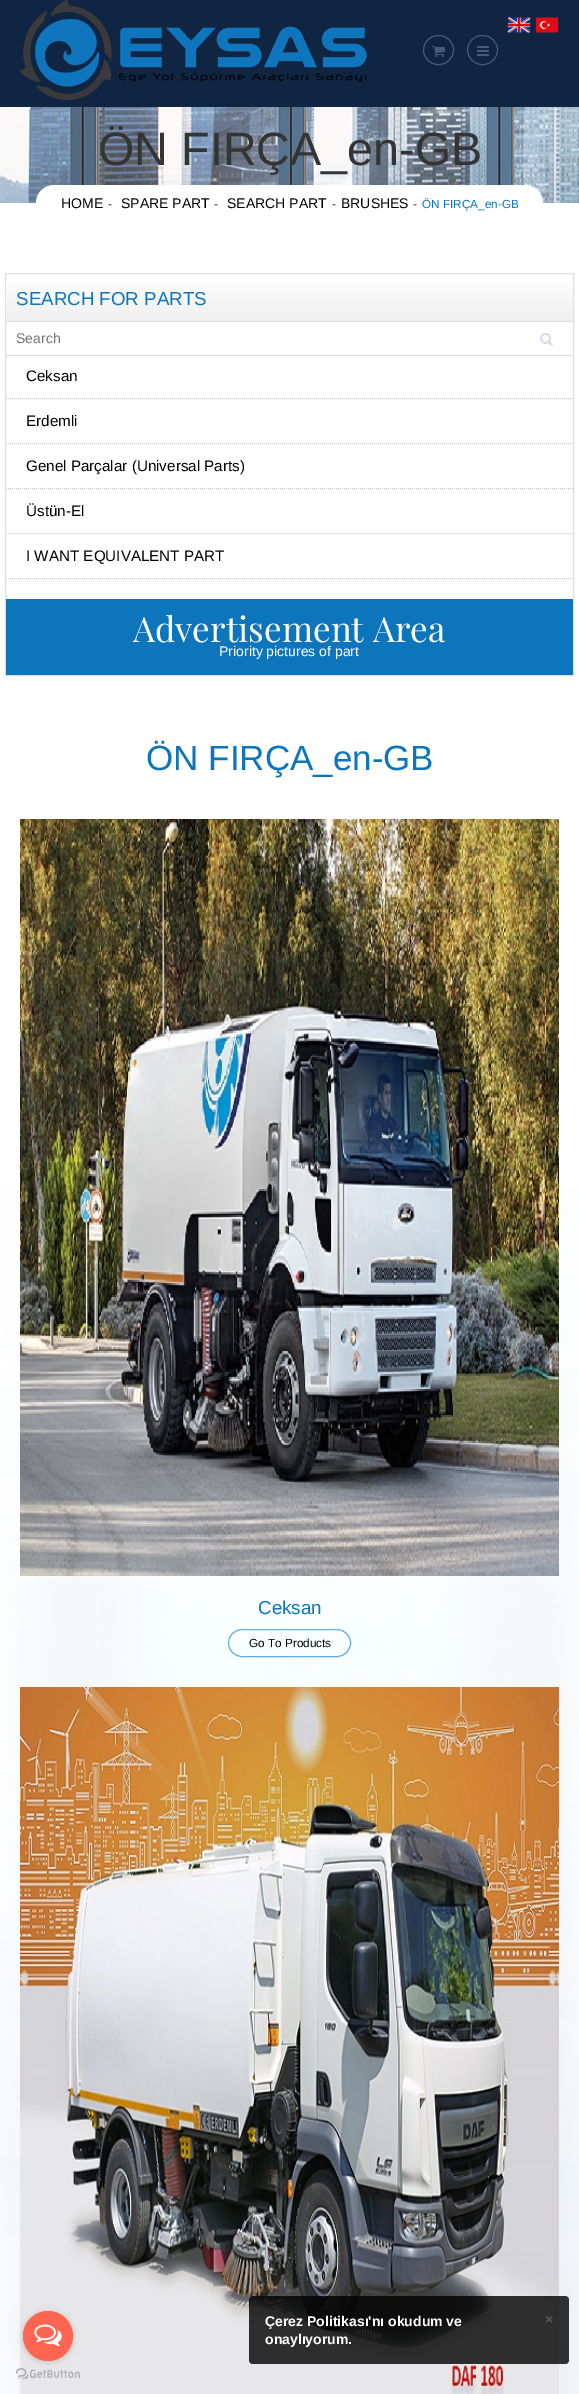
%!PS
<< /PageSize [579 2394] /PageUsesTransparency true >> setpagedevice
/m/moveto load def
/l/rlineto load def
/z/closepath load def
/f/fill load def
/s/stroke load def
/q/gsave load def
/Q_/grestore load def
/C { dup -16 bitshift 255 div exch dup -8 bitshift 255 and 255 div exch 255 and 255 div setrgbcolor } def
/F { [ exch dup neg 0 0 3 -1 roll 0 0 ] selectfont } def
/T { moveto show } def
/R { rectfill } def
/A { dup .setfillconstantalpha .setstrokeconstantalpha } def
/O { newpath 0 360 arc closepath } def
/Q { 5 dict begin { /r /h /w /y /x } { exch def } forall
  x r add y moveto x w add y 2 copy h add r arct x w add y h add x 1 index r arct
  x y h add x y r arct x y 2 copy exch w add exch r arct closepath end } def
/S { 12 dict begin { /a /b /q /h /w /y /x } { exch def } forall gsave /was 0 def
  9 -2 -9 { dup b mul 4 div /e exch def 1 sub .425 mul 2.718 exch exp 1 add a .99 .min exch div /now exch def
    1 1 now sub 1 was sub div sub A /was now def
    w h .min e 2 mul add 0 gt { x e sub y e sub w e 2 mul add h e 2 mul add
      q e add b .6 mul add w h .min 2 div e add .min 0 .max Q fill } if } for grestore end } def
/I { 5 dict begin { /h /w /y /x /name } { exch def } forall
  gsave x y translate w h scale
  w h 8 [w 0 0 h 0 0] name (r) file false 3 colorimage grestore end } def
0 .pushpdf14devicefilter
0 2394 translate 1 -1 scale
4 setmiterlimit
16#FFFFFF C
0 0 579 2394 R
16#0F2541 C
0 0 579 107 R
(1.rgb) 20 0 347 100 I
(2.rgb) 507 17 24 16 I
(3.rgb) 535 17 24 16 I
16#455B79 C
423.5 35.5 30 29 14.5 Q s
(4.rgb) 432 46 13 11 I
467.5 35.5 30 29 14.5 Q s
(5.rgb) 477 46 12 10 I
(6.rgb) 0 107 579 96 I
/LiberationSans-Regular 46.75 F
16#343434 C
(ÖN FIRÇA_en-GB) 98 165 T
16#FFFFFF C
36 185 507 37 18 Q f
/LiberationSans-Regular 14 F
16#000000 C
(HOME) 61 208 T
/LiberationSans-Regular 11.75 F
(-) 108 208 T
/LiberationSans-Regular 14 F
(SPARE PART) 121 208 T
/LiberationSans-Regular 11.75 F
(-) 214 208 T
/LiberationSans-Regular 14 F
(SEARCH PART) 227 208 T
/LiberationSans-Regular 11.75 F
(-) 332 208 T
/LiberationSans-Regular 14 F
(BRUSHES) 341 208 T
/LiberationSans-Regular 11.75 F
(-) 413 208 T
16#0D75BC C
(ÖN FIRÇA_en-GB) 422 208 T
(7.rgb) 0 1187 579 1207 I
16#DEDEDE C
5.5 273.5 568 402 rectstroke
q 6 281 m 567 0 l 0 40 l -567 0 l z clip newpath
<< /ShadingType 2 /ColorSpace /DeviceRGB /Coords [290 274 290 321] /Extend [true true] /Function << /FunctionType 2 /Domain [0 1] /C0 [1 1 1] /C1 [.937 .937 .937] /N 1 >> >> shfill Q_
6 321 567 1 R
/LiberationSans-Regular 18.75 F
16#0D75BC C
(SEARCH FOR PARTS) 16 305 T
16#D4DDE5 C
6 355 567 1 R
/LiberationSans-Regular 14 F
16#757575 C
(Search) 16 343 T
(8.rgb) 540 333 13 13 I
16#CCCCCC C
[1 1] 0 setdash
6 398.5 m 567 0 l s
/LiberationSans-Regular 15.2 F
16#000000 C
(Ceksan) 26 381 T
16#CCCCCC C
6 443.5 m 567 0 l s
16#000000 C
(Erdemli) 26 426 T
16#CCCCCC C
6 488.5 m 567 0 l s
16#000000 C
(Genel Parçalar \(Universal Parts\)) 26 471 T
16#CCCCCC C
6 533.5 m 567 0 l s
16#000000 C
(Üstün-El) 26 516 T
16#CCCCCC C
6 578.5 m 567 0 l s
16#000000 C
(I WANT EQUIVALENT PART) 26 561 T
16#0D75BC C
6 599 567 76 R
/PlayfairDisplay-Regular 35 F
16#FFFFFF C
(Advertisement Area) 133 642 T
/LiberationSans-Regular 14 F
(Priority pictures of part) 219 656 T
/LiberationSans-Regular 35 F
16#0D75BC C
(ÖN FIRÇA_en-GB) 146 770 T
(9.rgb) 20 819 539 757 I
/LiberationSans-Regular 18.75 F
(Ceksan) 258 1614 T
16#5EAFE6 C
[] 0 setdash
228.5 1629.5 122 27 13.5 Q s
/LiberationSans-Regular 11.75 F
16#000000 C
(Go To Products) 249 1647 T
(10.rgb) 20 1687 539 707 I
(12.rgb) 16 2368 64 11 I
16#888888 C
23 2312 50 50 25 3.5 .4 S
16#FF6550 C
48 2336 25 O f
(11.rgb) 34 2324 28 23 I
0.8 A
16#000000 C
249 2296 320 68 4 Q f
/LiberationSans-Bold 14 F
1 A
16#FFFFFF C
(Çerez Politikası'nı okudum ve) 265 2326 T
(onaylıyorum.) 265 2344 T
16#585858 C
(×) 545 2324 T
.poppdf14devicefilter showpage
